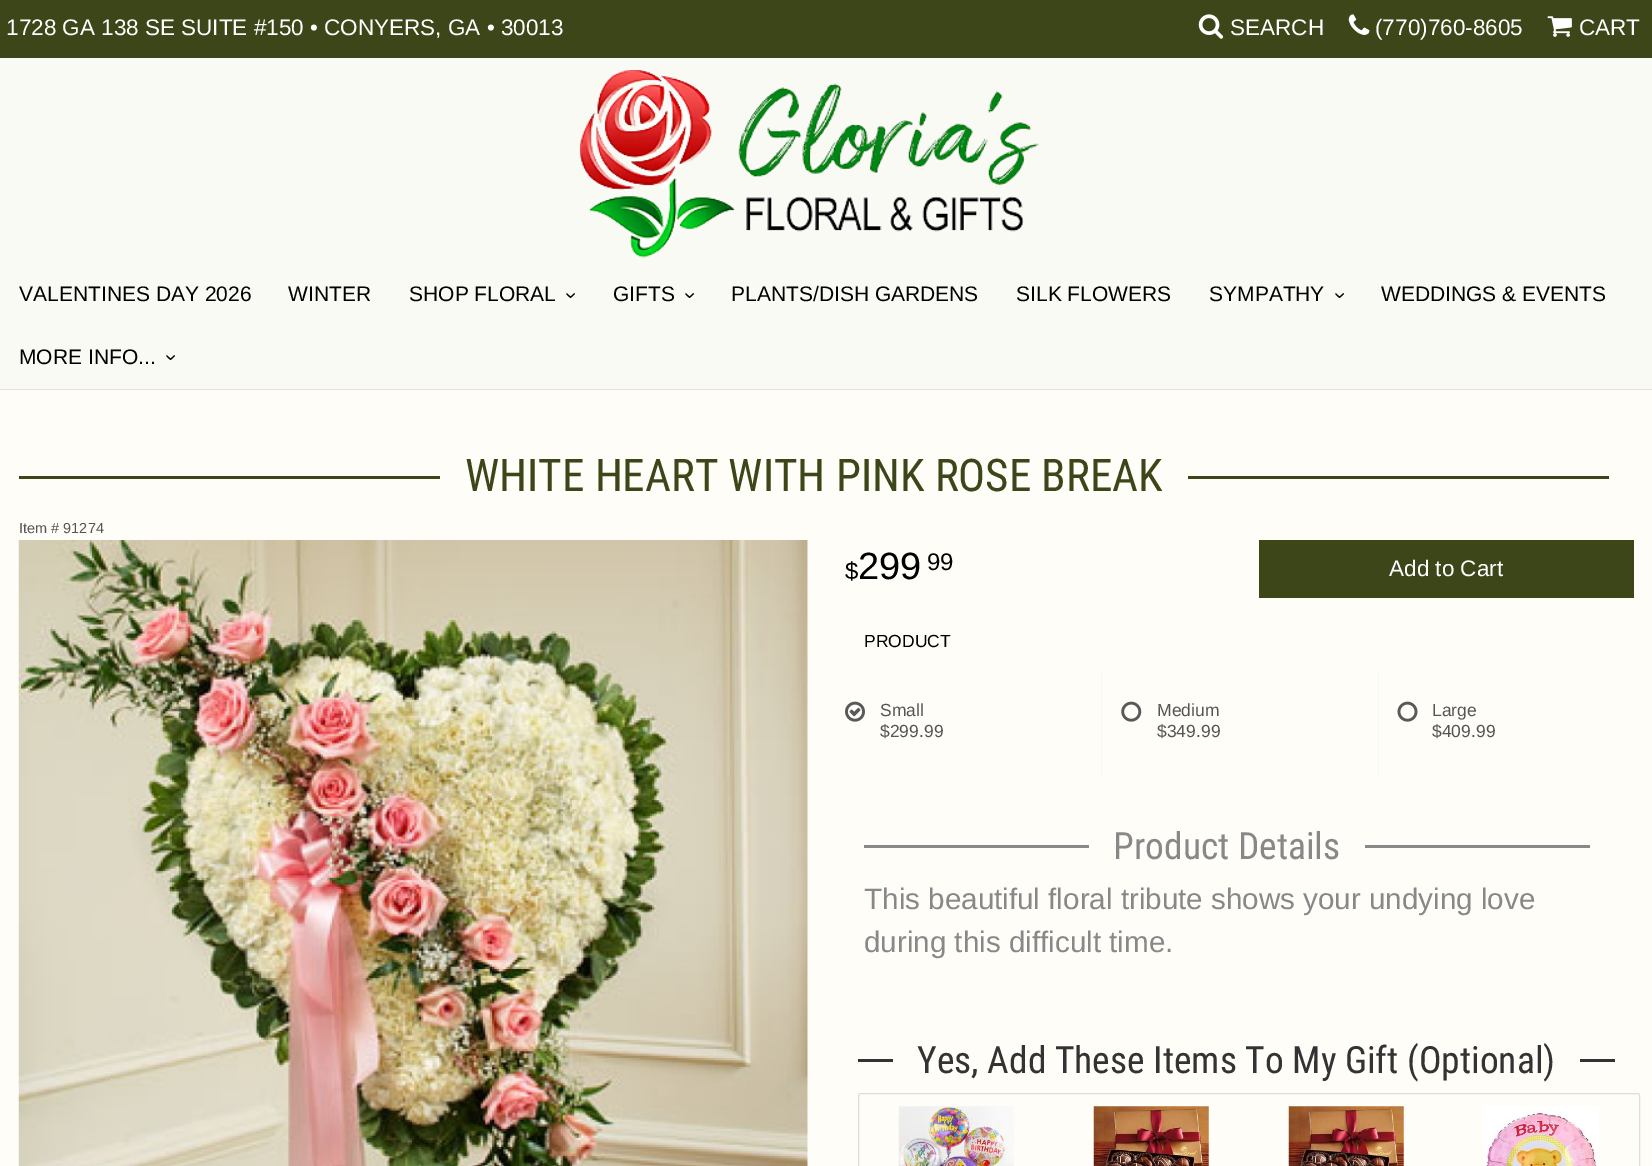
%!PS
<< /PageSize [1652 1166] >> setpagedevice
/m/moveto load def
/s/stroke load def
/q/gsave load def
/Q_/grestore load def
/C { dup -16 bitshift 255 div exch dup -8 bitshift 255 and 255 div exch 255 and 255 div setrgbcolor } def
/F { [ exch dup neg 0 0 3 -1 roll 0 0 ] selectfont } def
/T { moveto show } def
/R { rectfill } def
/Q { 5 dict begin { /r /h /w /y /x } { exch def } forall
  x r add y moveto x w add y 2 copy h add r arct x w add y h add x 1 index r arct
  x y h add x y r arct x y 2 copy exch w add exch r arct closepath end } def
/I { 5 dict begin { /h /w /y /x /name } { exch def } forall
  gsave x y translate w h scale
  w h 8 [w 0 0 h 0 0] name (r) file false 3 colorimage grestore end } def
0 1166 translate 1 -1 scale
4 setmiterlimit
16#FFFDF8 C
0 0 1652 1166 R
16#3C4619 C
0 0 1652 58 R
/LiberationSans-Regular 22.5 F
16#FFFFFF C
(1728 GA 138 SE SUITE #150 • CONYERS, GA • 30013) 6 35 T
(1.rgb) 1198 14 26 25 I
(SEARCH) 1230 35 T
(2.rgb) 1348 14 22 21 I
(\(770\)760-8605) 1375 35 T
(3.rgb) 1547 16 25 21 I
(CART) 1579 35 T
16#FAFAF5 C
0 58 1652 331 R
(4.rgb) 580 70 459 188 I
16#E1E1DD C
0 389 1652 1 R
/LiberationSans-Regular 21 F
16#000000 C
(VALENTINES DAY 2026) 19 301 T
(WINTER) 288 301 T
(SHOP FLORAL) 409 301 T
q 565 292 translate 90 rotate 0 0 m (›) show Q_
(GIFTS) 613 301 T
q 684 292 translate 90 rotate 0 0 m (›) show Q_
(PLANTS/DISH GARDENS) 731 301 T
(SILK FLOWERS) 1016 301 T
(SYMPATHY) 1209 301 T
q 1334 292 translate 90 rotate 0 0 m (›) show Q_
(WEDDINGS & EVENTS) 1381 301 T
(MORE INFO...) 19 364 T
q 165 354 translate 90 rotate 0 0 m (›) show Q_
16#3C4619 C
19 476 421 3 R
/RobotoCondensed-Regular 45 F
(WHITE HEART WITH PINK ROSE BREAK) 465 491 T
1188 476 421 3 R
/LiberationSans-Regular 14.5 F
16#555555 C
(Item # 91274) 19 533 T
16#FFFFFF C
807 540 1 626 R
(5.rgb) 18 540 790 626 I
/LiberationSans-Regular 24 F
16#000000 C
($) 845 579 T
/LiberationSans-Regular 38 F
(299) 858 579 T
/LiberationSans-Regular 24 F
(99) 927 570 T
16#3C4619 C
1259 540 375 58 R
/LiberationSans-Regular 22.5 F
16#FFFFFF C
(Add to Cart) 1389 576 T
/LiberationSans-Regular 17.5 F
16#000000 C
(PRODUCT) 864 647 T
(6.rgb) 845 701 20 21 I
16#555555 C
(Small) 880 716 T
($299.99) 880 737 T
16#F6F6F6 C
1101 673 1 102 R
(7.rgb) 1121 701 21 21 I
16#555555 C
(Medium) 1157 716 T
($349.99) 1157 737 T
16#F6F6F6 C
1378 673 1 102 R
(8.rgb) 1397 701 21 21 I
16#555555 C
(Large) 1432 716 T
($409.99) 1432 737 T
16#888888 C
864 845 225 3 R
/RobotoCondensed-Regular 37.5 F
(Product Details) 1113 859 T
1365 845 225 3 R
/LiberationSans-Regular 29.6 F
(This beautiful floral tribute shows your undying love) 864 909 T
(during this difficult time.) 864 952 T
16#333333 C
858 1059 35 3 R
/RobotoCondensed-Regular 37.5 F
(Yes, Add These Items To My Gift \(Optional\)) 917 1073 T
1580 1059 35 3 R
16#DDDDDD C
858.5 1093.5 781 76 2 Q s
(9.rgb) 898 1106 116 60 I
(10.rgb) 1093 1106 116 60 I
(11.rgb) 1288 1106 116 60 I
(12.rgb) 1484 1106 115 60 I
showpage
